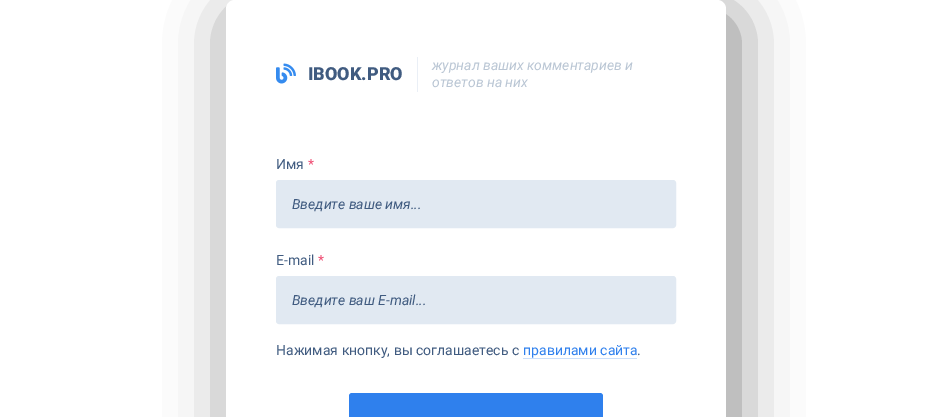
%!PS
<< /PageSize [952 417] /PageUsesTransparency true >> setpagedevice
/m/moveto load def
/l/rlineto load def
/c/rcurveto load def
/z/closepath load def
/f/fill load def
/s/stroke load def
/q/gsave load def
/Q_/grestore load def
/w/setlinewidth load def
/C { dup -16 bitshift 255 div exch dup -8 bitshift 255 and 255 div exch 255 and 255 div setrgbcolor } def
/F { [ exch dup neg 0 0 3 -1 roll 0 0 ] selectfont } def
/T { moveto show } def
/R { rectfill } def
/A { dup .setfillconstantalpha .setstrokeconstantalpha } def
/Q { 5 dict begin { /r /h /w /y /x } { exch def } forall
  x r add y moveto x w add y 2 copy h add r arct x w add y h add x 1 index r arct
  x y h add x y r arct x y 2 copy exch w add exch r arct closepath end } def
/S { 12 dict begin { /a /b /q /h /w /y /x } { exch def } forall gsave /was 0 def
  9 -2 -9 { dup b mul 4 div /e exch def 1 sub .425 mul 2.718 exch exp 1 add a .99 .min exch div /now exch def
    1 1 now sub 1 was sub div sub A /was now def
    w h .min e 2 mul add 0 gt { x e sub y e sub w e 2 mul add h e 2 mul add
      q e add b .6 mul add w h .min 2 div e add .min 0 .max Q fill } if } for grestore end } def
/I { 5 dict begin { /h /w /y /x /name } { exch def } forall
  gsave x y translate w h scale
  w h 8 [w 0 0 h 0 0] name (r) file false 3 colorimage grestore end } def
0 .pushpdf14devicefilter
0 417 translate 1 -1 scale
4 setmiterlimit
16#FFFFFF C
0 0 952 417 R
16#000000 C
234 16 500 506 9 32 .5 S
16#FFFFFF C
235 0 m 482 0 l 5 0 9 4 9 9 c 0 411 l 0 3.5 -2.5 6 -6 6 c -488 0 l -3.5 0 -6 -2.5 -6 -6 c 0 -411 l 0 -5 4 -9 9 -9 c z f
(1.rgb) 276 63 20 21 I
/Roboto-Black 18 F
16#405B80 C
(IBOOK.PRO) 308 80 T
16#EAEFF6 C
417 57 1 35 R
/Roboto-Italic 14 F
16#BAC6D4 C
(журнал ваших комментариев и) 432 70 T
(ответов на них) 432 87 T
/Roboto-Regular 14 F
16#405B80 C
(Имя) 276 169 T
16#EF4D73 C
(*) 308 169 T
16#E1E9F2 C
277 181 398 46 2 Q q f Q_
2 w
s
/Roboto-Italic 14 F
16#405B80 C
(Введите ваше имя...) 292 209 T
/Roboto-Regular 14 F
(E-mail) 276 265 T
16#EF4D73 C
(*) 318 265 T
16#E1E9F2 C
277 277 398 46 2 Q q f Q_
s
/Roboto-Italic 14 F
16#405B80 C
(Введите ваш E-mail...) 292 305 T
/Roboto-Regular 14 F
(Нажимая кнопку, вы соглашаетесь с) 276 355 T
16#2F80ED C
(правилами сайта) 523 355 T
16#CBDFFB C
523 358 114 1 R
16#405B80 C
(.) 637 355 T
16#2F80ED C
349 393 254 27 3 Q f
.poppdf14devicefilter showpage
